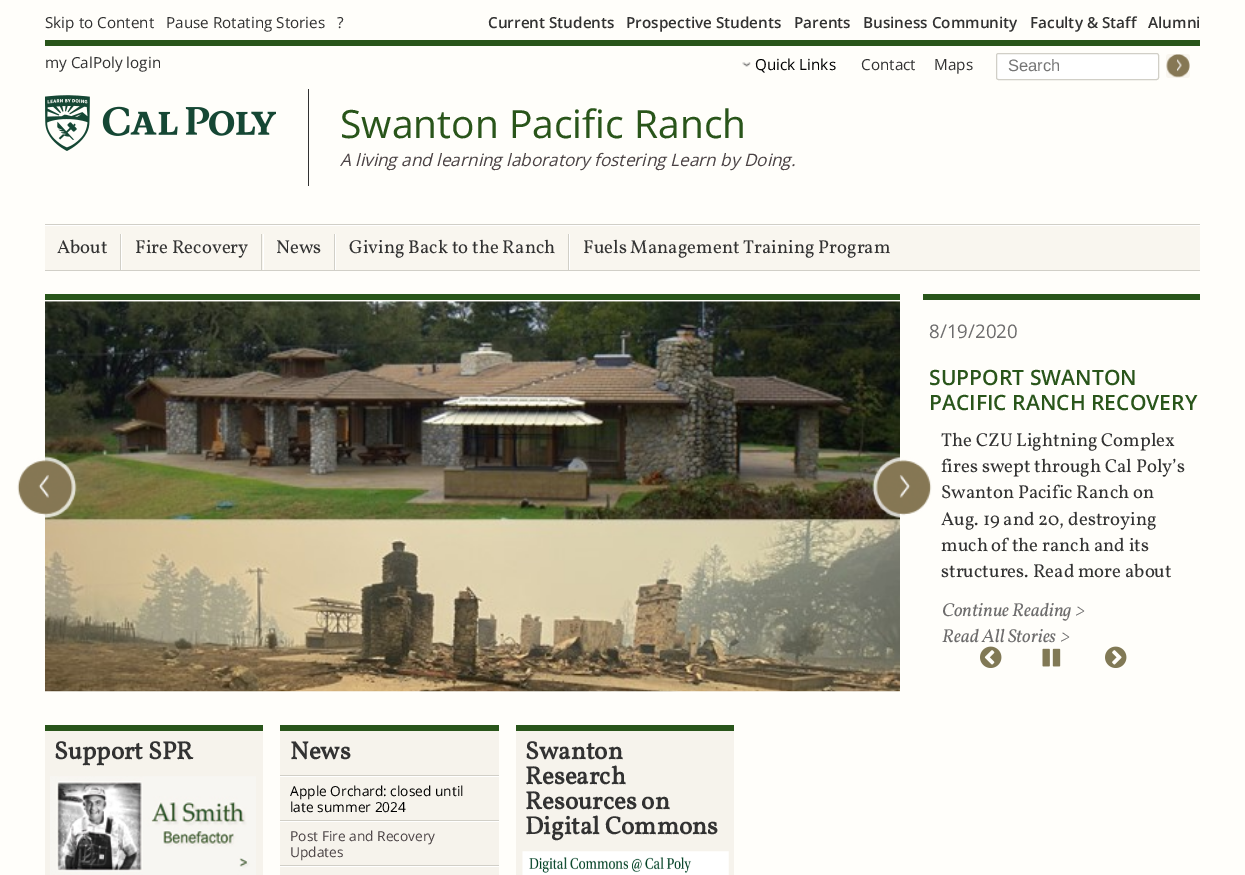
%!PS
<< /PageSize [1245 875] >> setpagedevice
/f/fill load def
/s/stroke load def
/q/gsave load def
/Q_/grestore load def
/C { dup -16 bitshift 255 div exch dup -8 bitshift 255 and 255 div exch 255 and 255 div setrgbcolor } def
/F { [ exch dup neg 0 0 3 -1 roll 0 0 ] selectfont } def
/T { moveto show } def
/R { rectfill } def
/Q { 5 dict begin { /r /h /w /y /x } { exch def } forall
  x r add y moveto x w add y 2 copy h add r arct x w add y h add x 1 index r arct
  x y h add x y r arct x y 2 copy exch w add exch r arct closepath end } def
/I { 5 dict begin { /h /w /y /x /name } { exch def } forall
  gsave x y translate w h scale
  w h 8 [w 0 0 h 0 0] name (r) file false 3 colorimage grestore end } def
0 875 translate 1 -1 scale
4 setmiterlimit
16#FFFEFA C
0 0 1245 875 R
/OpenSans-Regular 15.25 F
16#323232 C
(Skip to Content) 45 28 T
(Pause Rotating Stories) 166 28 T
(?) 337 28 T
/OpenSans-SemiBold 15.25 F
(Current Students) 488 28 T
(Prospective Students) 626 28 T
(Parents) 794 28 T
(Business Community) 863 28 T
(Faculty & Staff) 1030 28 T
(Alumni) 1148 28 T
16#29551A C
45 40 1155 6 R
/OpenSans-Regular 15.25 F
16#323232 C
(my CalPoly login) 45 68 T
(1.rgb) 742 62 9 5 I
16#000000 C
(Quick Links) 755 70 T
16#323232 C
(Contact) 861 70 T
(Maps) 934 70 T
16#FFFFFF C
996.5 53.5 162 26 2 Q q f Q_
16#D1CFC7 C
s
/LiberationSans-Regular 16.5 F
16#757575 C
(Search) 1008 71 T
16#F9F6EF C
1166 54 24 24 2.5 Q f
(2.rgb) 1166 54 24 24 I
(3.rgb) 45 95 231 56 I
16#323232 C
308 89 1 97 R
/OpenSans-Regular 39 F
16#29551A C
(Swanton Pacific Ranch) 340 138 T
/OpenSans-Italic 17.2 F
16#4A4244 C
(A living and learning laboratory fostering Learn by Doing.) 340 166 T
16#F9F6EF C
45 226 1155 44 R
16#D1CFC7 C
45 224 1155 1 R
45 270 1155 1 R
16#FFFFFF C
45 225 1155 1 R
16#D1CFC7 C
120 234 1 36 R
/Vollkorn-Regular 18.75 F
16#323232 C
(About) 57 253 T
16#D1CFC7 C
261 234 1 36 R
16#FFFFFF C
121 234 1 36 R
16#323232 C
(Fire Recovery) 135 253 T
16#D1CFC7 C
334 234 1 36 R
16#FFFFFF C
263 234 1 36 R
16#323232 C
(News) 276 253 T
16#D1CFC7 C
568 234 1 36 R
16#FFFFFF C
335 234 1 36 R
16#323232 C
(Giving Back to the Ranch) 349 253 T
16#FFFFFF C
569 234 1 36 R
16#323232 C
(Fuels Management Training Program) 583 253 T
(6.rgb) 45 301 855 391 I
(4.rgb) 17 456 60 63 I
(5.rgb) 872 456 60 62 I
16#29551A C
45 294 1155 6 R
16#FFFEFA C
900 294 23 6 R
/OpenSans-Regular 18.75 F
16#6D6C6C C
(8/19/2020) 929 338 T
/OpenSans-SemiBold 21.1 F
16#29551A C
(SUPPORT SWANTON) 929 385 T
(PACIFIC RANCH RECOVERY) 929 410 T
/Vollkorn-Regular 18.75 F
16#323232 C
(The CZU Lightning Complex) 941 446 T
(fires swept through Cal Poly’s) 941 472 T
(Swanton Pacific Ranch on) 941 498 T
(Aug. 19 and 20, destroying) 941 525 T
(much of the ranch and its) 941 551 T
(structures. Read more about) 941 577 T
/Vollkorn-Italic 18.75 F
16#6D6C6C C
(Continue Reading >) 942 616 T
(Read All Stories >) 942 642 T
(7.rgb) 980 646 22 22 I
(8.rgb) 1042 648 19 19 I
(9.rgb) 1105 646 22 22 I
16#F6F3EC C
45 731 218 144 R
16#29551A C
45 725 218 6 R
/Vollkorn-Bold 25 F
16#323232 C
(Support SPR) 54 759 T
(10.rgb) 50 776 206 99 I
16#F6F3EC C
280 731 219 144 R
16#29551A C
280 725 219 6 R
16#323232 C
(News) 290 759 T
16#D1CFC7 C
280 775 219 1 R
16#FFFFFF C
280 776 219 1 R
16#D1CFC7 C
280 820 219 1 R
/OpenSans-Regular 13.75 F
16#000000 C
(Apple Orchard: closed until) 290 796 T
(late summer 2024) 290 812 T
16#FFFFFF C
280 821 219 1 R
16#D1CFC7 C
280 865 219 1 R
16#4A4244 C
(Post Fire and Recovery) 290 841 T
(Updates) 290 857 T
16#FFFFFF C
280 866 219 1 R
16#F6F3EC C
516 731 218 144 R
16#29551A C
516 725 218 6 R
/Vollkorn-Bold 25 F
16#323232 C
(Swanton) 525 759 T
(Research) 525 784 T
(Resources on) 525 809 T
(Digital Commons) 525 834 T
(11.rgb) 522 851 207 24 I
showpage
